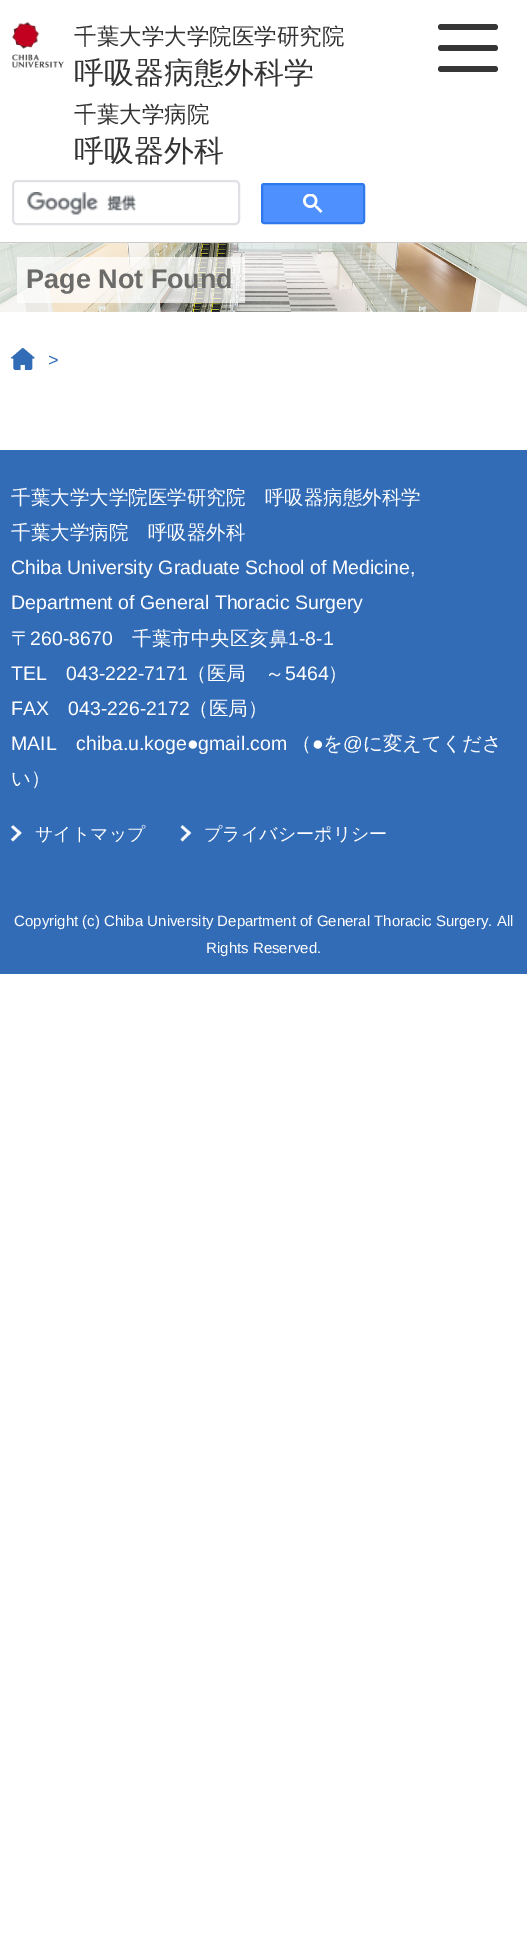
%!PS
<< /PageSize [527 1947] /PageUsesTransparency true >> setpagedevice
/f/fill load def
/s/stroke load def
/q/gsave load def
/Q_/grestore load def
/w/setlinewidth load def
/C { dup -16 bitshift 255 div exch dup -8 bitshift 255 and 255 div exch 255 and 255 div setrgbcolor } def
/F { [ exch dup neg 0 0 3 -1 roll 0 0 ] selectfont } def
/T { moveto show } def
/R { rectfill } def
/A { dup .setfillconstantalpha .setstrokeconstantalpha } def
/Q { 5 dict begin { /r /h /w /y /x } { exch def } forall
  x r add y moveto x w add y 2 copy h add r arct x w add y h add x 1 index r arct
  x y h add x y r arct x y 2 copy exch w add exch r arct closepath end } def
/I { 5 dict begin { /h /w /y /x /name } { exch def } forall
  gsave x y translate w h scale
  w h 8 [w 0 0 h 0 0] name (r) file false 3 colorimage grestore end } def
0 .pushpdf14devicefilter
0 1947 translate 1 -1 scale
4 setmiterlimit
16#FFFFFF C
0 0 527 1947 R
(1.rgb) 12 22 52 46 I
/WenQuanYiZenHei-Medium 22.5 F
16#333333 C
(千葉大学大学院医学研究院) 74 44 T
/WenQuanYiZenHei-Medium 30 F
(呼吸器病態外科学) 74 83 T
/WenQuanYiZenHei-Medium 22.5 F
(千葉大学病院) 74 122 T
/WenQuanYiZenHei-Medium 30 F
(呼吸器外科) 74 161 T
16#DFE1E5 C
2 w
13 181 226 43 4 Q s
(2.rgb) 27 192 109 23 I
16#4D90FE C
262 184 102 39 2 Q q f Q_
16#3079ED C
s
(3.rgb) 303 194 20 19 I
16#363636 C
438 45 60 6 3 Q f
438 24 60 6 3 Q f
438 66 60 6 3 Q f
16#CCCCCC C
0 242 527 1 R
(4.rgb) 0 243 527 69 I
0.7 A
16#FFFFFF C
17 257 228 46 R
/LiberationSans-Bold 27 F
1 A
16#6B6B69 C
(Page Not Found) 26 288 T
(5.rgb) 11 348 24 22 I
/LiberationSans-Regular 18 F
16#336CB6 C
(>) 48 366 T
0 450 527 524 R
/WenQuanYiZenHei-Medium 19.5 F
16#FFFFFF C
(千葉大学大学院医学研究院　呼吸器病態外科学) 11 504 T
(千葉大学病院　呼吸器外科) 11 539 T
/LiberationSans-Regular 19.5 F
(Chiba University Graduate School of Medicine,) 11 574 T
(Department of General Thoracic Surgery) 11 609 T
/WenQuanYiZenHei-Medium 19.5 F
(〒) 11 645 T
/LiberationSans-Regular 19.5 F
(260-8670) 30 645 T
/WenQuanYiZenHei-Medium 19.5 F
(千葉市中央区亥鼻) 132 645 T
/LiberationSans-Regular 19.5 F
(1-8-1) 288 645 T
(TEL) 11 680 T
(043-222-7171) 66 680 T
/WenQuanYiZenHei-Medium 19.5 F
(（医局　～) 187 680 T
/LiberationSans-Regular 19.5 F
(5464) 285 680 T
/WenQuanYiZenHei-Medium 19.5 F
(）) 328 680 T
/LiberationSans-Regular 19.5 F
(FAX) 11 715 T
(043-226-2172) 68 715 T
/WenQuanYiZenHei-Medium 19.5 F
(（医局）) 189 715 T
/LiberationSans-Regular 19.5 F
(MAIL) 11 750 T
(chiba.u.koge●gmail.com) 76 750 T
/WenQuanYiZenHei-Medium 19.5 F
(（) 292 750 T
/LiberationSans-Regular 19.5 F
(●) 312 750 T
/WenQuanYiZenHei-Medium 19.5 F
(を) 323 750 T
/LiberationSans-Regular 19.5 F
(@) 343 750 T
/WenQuanYiZenHei-Medium 19.5 F
(に変えてくださ) 363 750 T
(い）) 11 785 T
(6.rgb) 10 825 12 17 I
/WenQuanYiZenHei-Medium 18 F
(サイトマップ) 35 840 T
(7.rgb) 180 825 12 17 I
(プライバシーポリシー) 204 840 T
/LiberationSans-Regular 15 F
(Copyright \(c\) Chiba University Department of General Thoracic Surgery. All) 14 926 T
(Rights Reserved.) 206 953 T
.poppdf14devicefilter showpage
